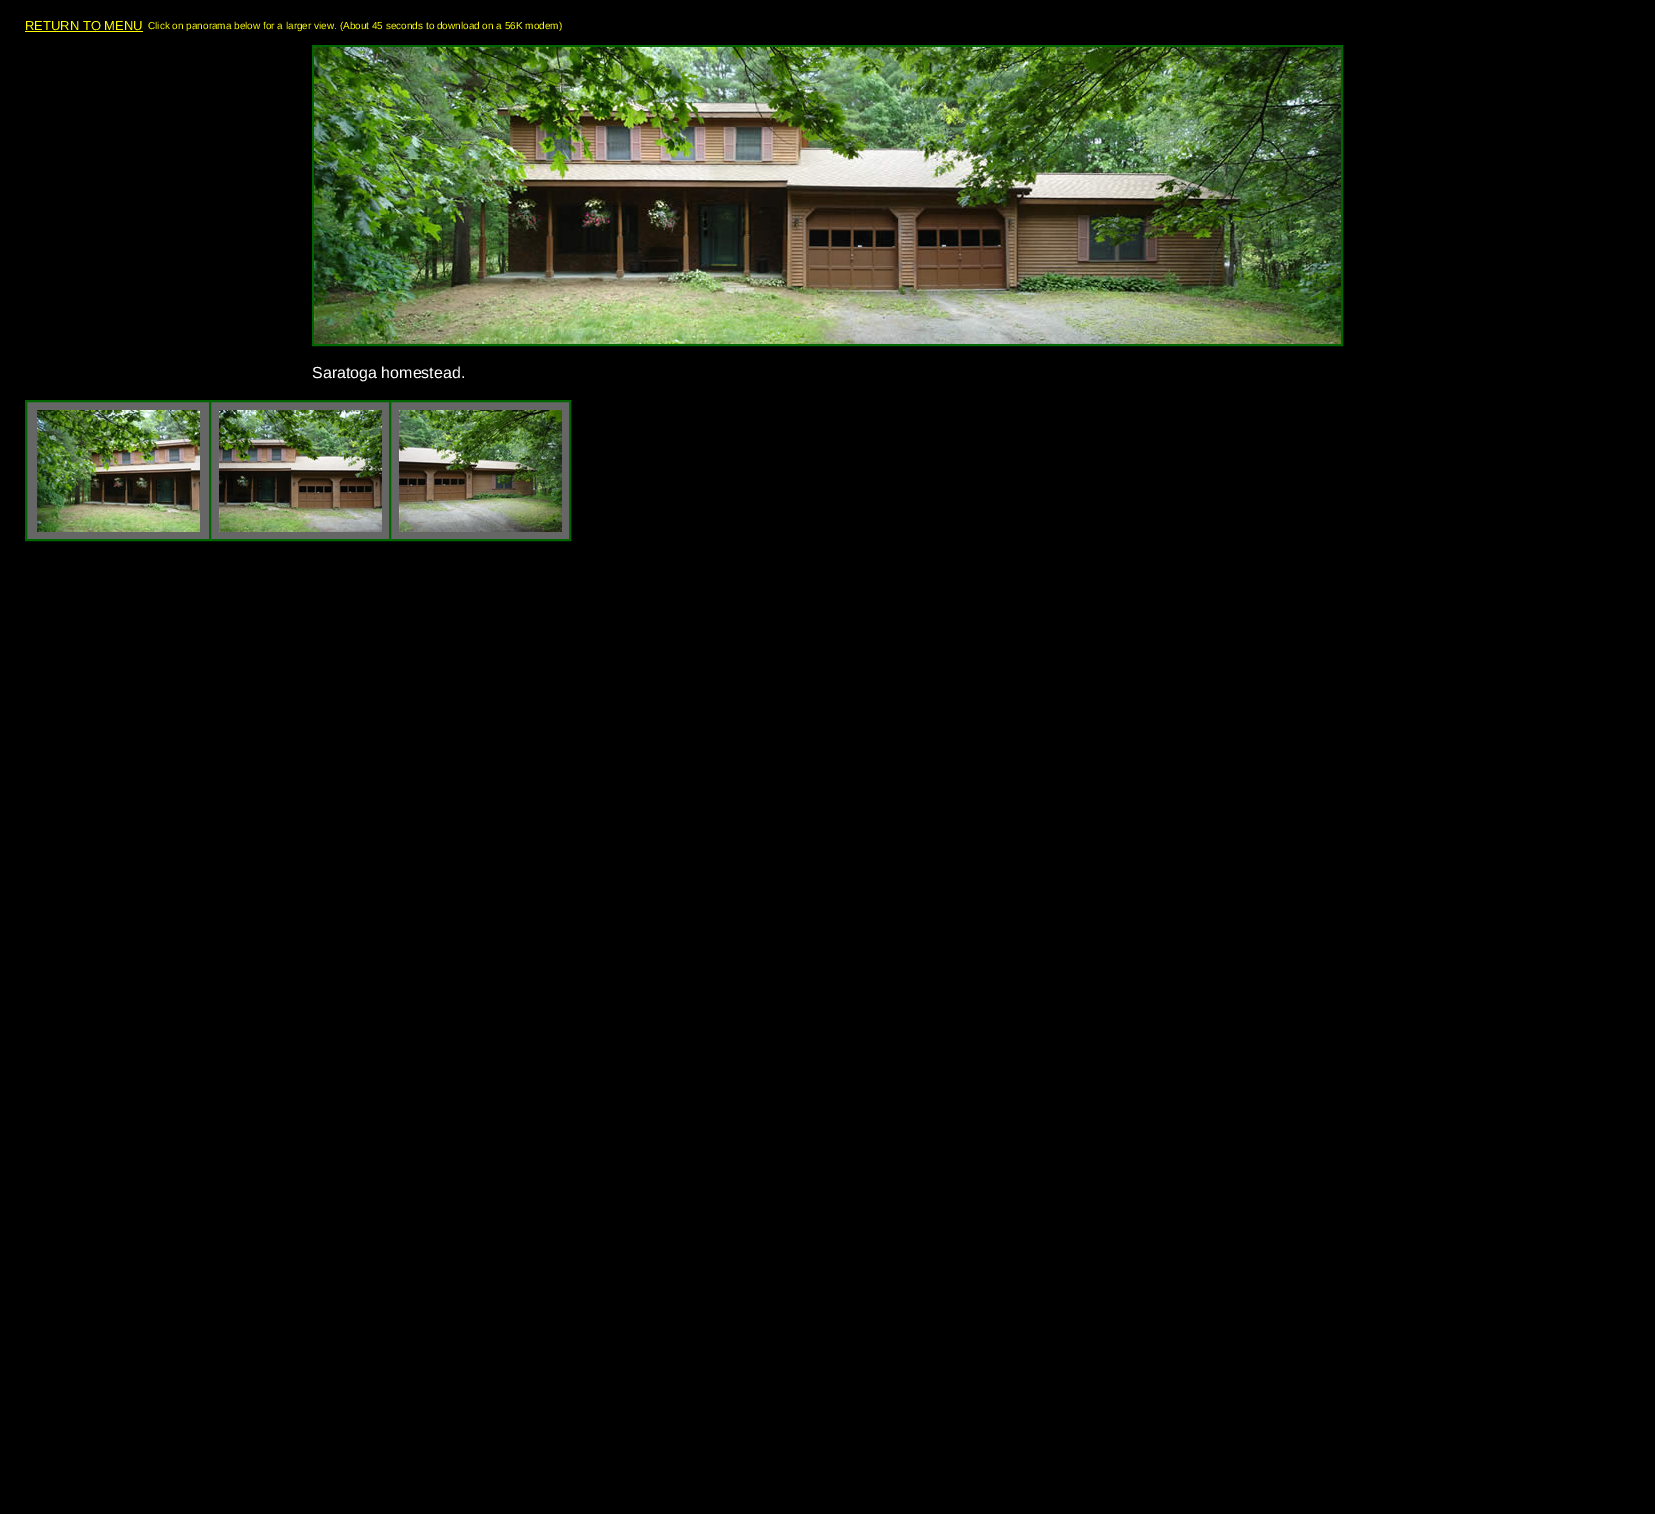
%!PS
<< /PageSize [1655 1514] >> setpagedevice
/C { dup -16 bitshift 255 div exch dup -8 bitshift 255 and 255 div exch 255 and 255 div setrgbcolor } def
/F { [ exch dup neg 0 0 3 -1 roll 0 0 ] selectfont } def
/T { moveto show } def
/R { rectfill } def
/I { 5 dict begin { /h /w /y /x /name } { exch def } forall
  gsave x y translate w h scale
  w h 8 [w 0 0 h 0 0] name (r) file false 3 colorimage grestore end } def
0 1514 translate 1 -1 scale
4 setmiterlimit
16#000000 C
0 0 1655 1514 R
/LiberationSans-Regular 13 F
16#FFFF00 C
(RETURN TO MENU) 25 30 T
25 31 118 1 R
/LiberationSans-Regular 10 F
(Click on panorama below for a larger view. \(About 45 seconds to download on a 56K modem\)) 148 29 T
16#006600 C
312.5 45.5 1030 300 rectstroke
313.5 46.5 1028 298 rectstroke
(1.rgb) 314 47 1027 297 I
/LiberationSans-Regular 16 F
16#FFFFFF C
(Saratoga homestead.) 312 378 T
16#666666 C
27 402 542 137 R
16#006600 C
25.5 400.5 545 140 rectstroke
26.5 401.5 183 138 rectstroke
(2.rgb) 37 410 163 122 I
210.5 401.5 179 138 rectstroke
(3.rgb) 219 410 163 122 I
390.5 401.5 179 138 rectstroke
(4.rgb) 399 410 163 122 I
showpage
